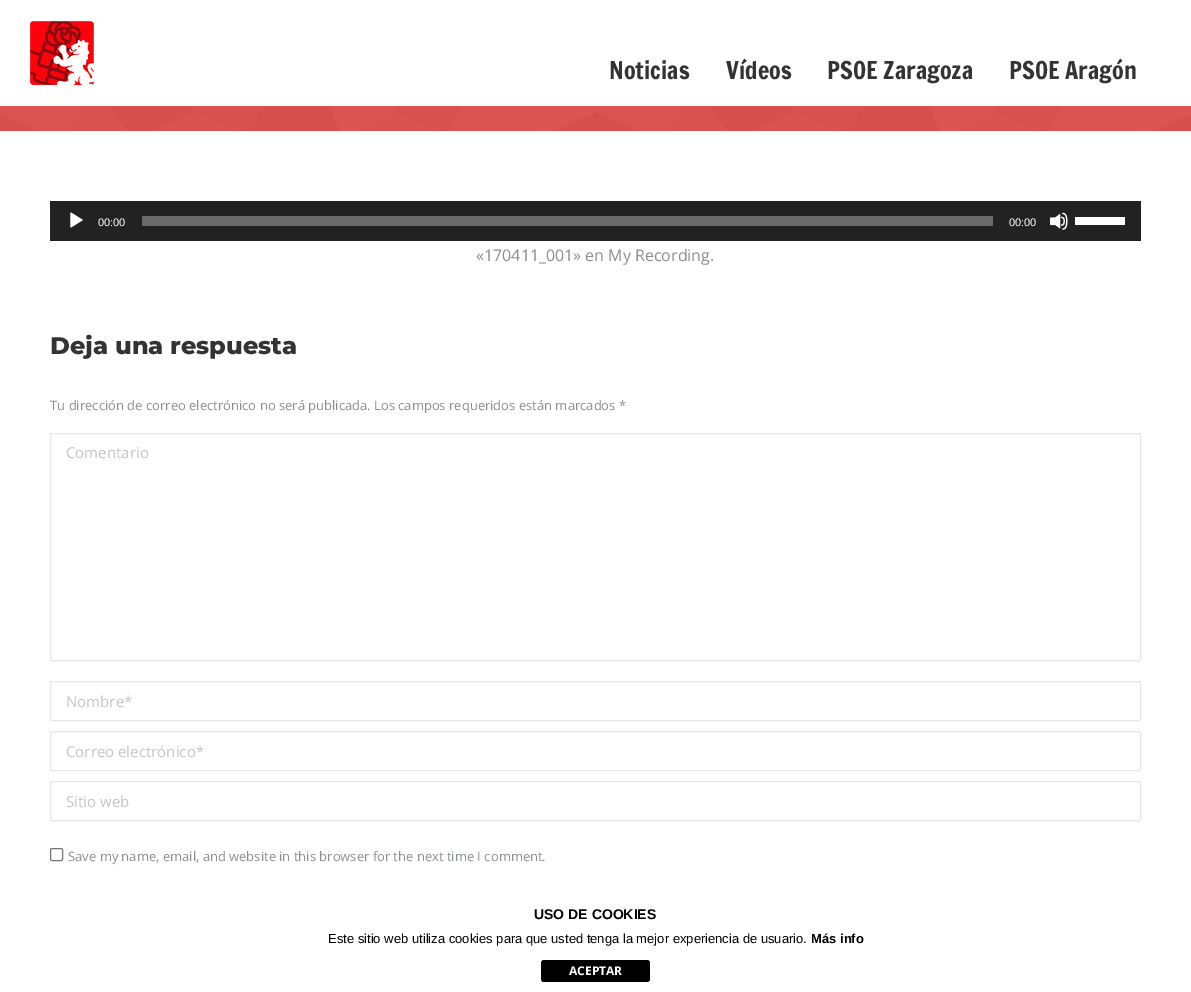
%!PS
<< /PageSize [1191 992] >> setpagedevice
/f/fill load def
/s/stroke load def
/C { dup -16 bitshift 255 div exch dup -8 bitshift 255 and 255 div exch 255 and 255 div setrgbcolor } def
/F { [ exch dup neg 0 0 3 -1 roll 0 0 ] selectfont } def
/T { moveto show } def
/R { rectfill } def
/Q { 5 dict begin { /r /h /w /y /x } { exch def } forall
  x r add y moveto x w add y 2 copy h add r arct x w add y h add x 1 index r arct
  x y h add x y r arct x y 2 copy exch w add exch r arct closepath end } def
/I { 5 dict begin { /h /w /y /x /name } { exch def } forall
  gsave x y translate w h scale
  w h 8 [w 0 0 h 0 0] name (r) file false 3 colorimage grestore end } def
0 992 translate 1 -1 scale
4 setmiterlimit
16#FFFFFF C
0 0 1191 992 R
(1.rgb) 30 21 64 64 I
/FrancoisOne-Regular 24 F
16#333333 C
(Noticias) 609 79 T
(Vídeos) 726 79 T
(PSOE Zaragoza) 827 79 T
(PSOE Aragón) 1009 79 T
16#DD3333 C
0 106 1191 25 R
(2.rgb) 0 106 1191 25 I
16#222222 C
50 201 1091 40 R
(3.rgb) 70 212 13 16 I
/LiberationSans-Regular 11 F
16#FFFFFF C
(00:00) 98 226 T
16#6B6B6B C
142 216 851 10 R
16#FFFFFF C
(00:00) 1009 226 T
(4.rgb) 1050 212 18 18 I
1075 217 50 8 R
/OpenSans-Regular 16 F
16#8B8D94 C
(«170411_001» en My Recording.) 476 261 T
/Montserrat-ExtraBold 24 F
16#333333 C
(Deja una respuesta) 50 354 T
/OpenSans-Regular 13 F
16#8B8D94 C
(Tu dirección de correo electrónico no será publicada. Los campos requeridos están marcados *) 50 410 T
16#E7E7E7 C
50.5 433.5 1090 227 1.5 Q s
/OpenSans-Regular 15 F
16#C4C5C9 C
(Comentario) 66 458 T
16#E7E7E7 C
50.5 681.5 1090 39 1.5 Q s
16#C4C5C9 C
(Nombre*) 66 707 T
16#E7E7E7 C
50.5 731.5 1090 39 1.5 Q s
16#C4C5C9 C
(Correo electrónico*) 66 757 T
16#E7E7E7 C
50.5 781.5 1090 39 1.5 Q s
16#C4C5C9 C
(Sitio web) 66 807 T
16#767676 C
50.5 848.5 12 12 1.5 Q s
/OpenSans-Regular 13 F
16#8B8D94 C
(Save my name, email, and website in this browser for the next time I comment.) 68 861 T
/LiberationSans-Bold 14 F
16#000000 C
(USO DE COOKIES) 534 919 T
/LiberationSans-Regular 13 F
(Este sitio web utiliza cookies para que usted tenga la mejor experiencia de usuario.) 328 943 T
/LiberationSans-Bold 13 F
(Más info) 811 943 T
541 960 109 22 3 Q f
/OpenSans-Bold 12 F
16#FFFFFF C
(ACEPTAR) 569 975 T
showpage
